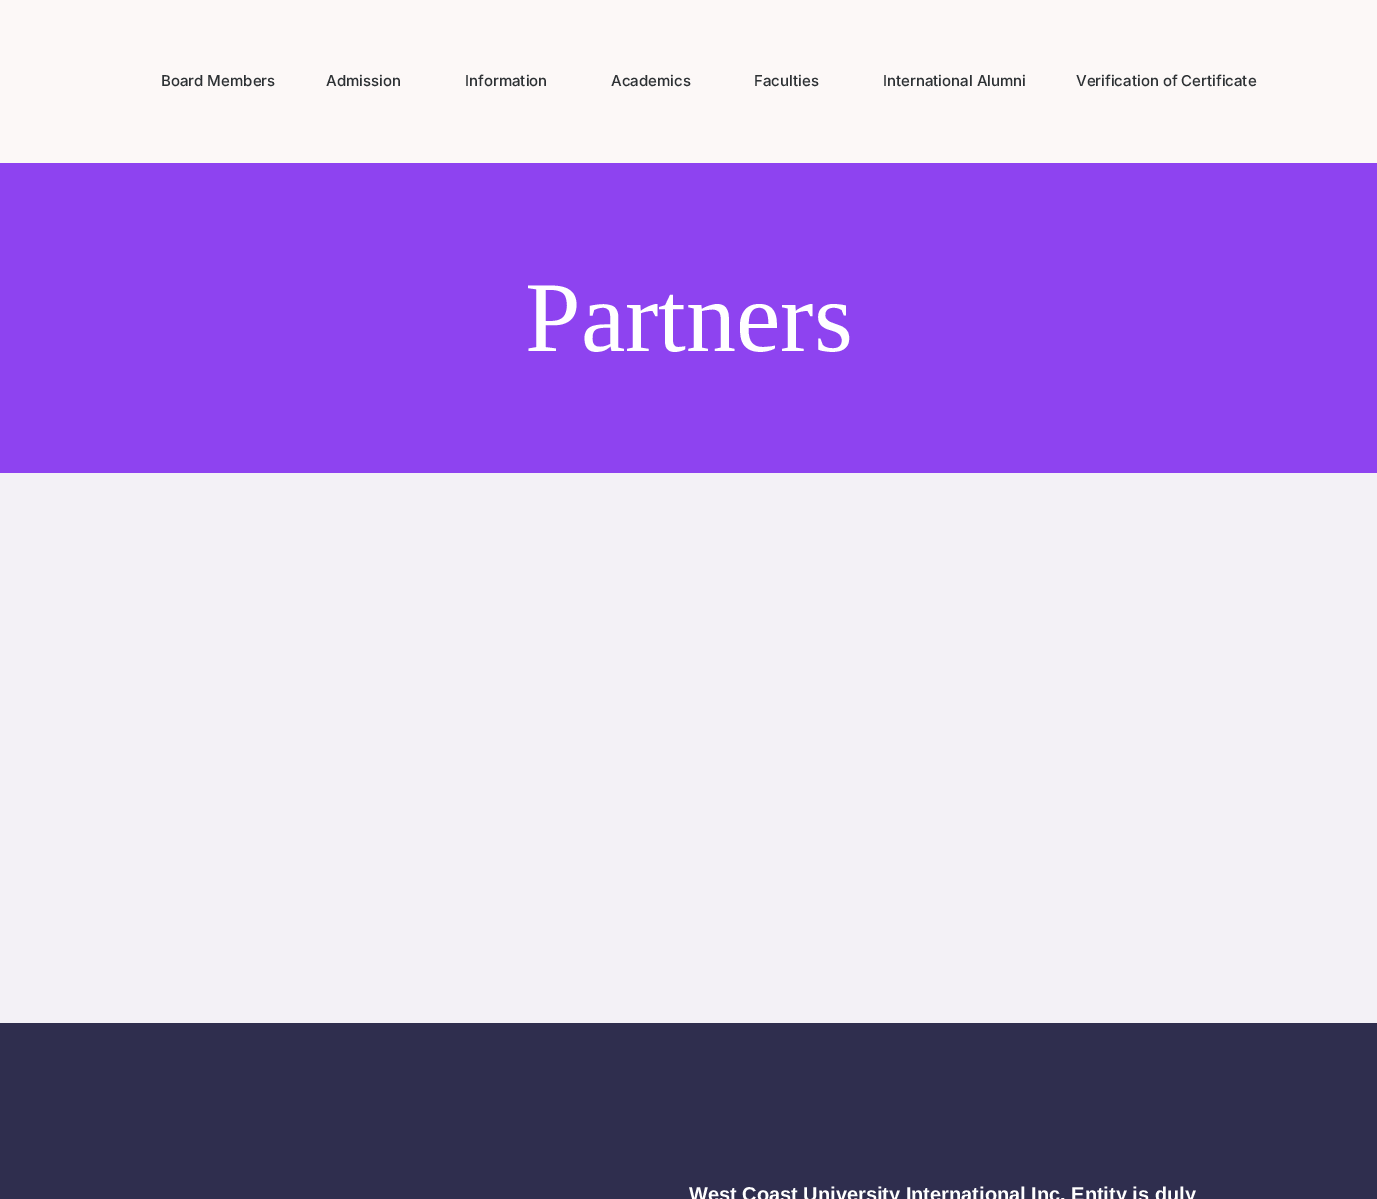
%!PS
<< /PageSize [1377 1199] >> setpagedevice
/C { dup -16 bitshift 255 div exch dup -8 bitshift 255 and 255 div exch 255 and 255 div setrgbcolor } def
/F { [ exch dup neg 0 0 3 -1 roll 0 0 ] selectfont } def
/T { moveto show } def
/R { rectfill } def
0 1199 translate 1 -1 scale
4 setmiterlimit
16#F3F1F6 C
0 0 1377 1199 R
16#FCF8F7 C
0 0 1377 163 R
/Inter-Medium 15 F
16#2D3134 C
(Board Members) 161 86 T
(Admission) 326 86 T
(Information) 465 86 T
(Academics) 611 86 T
(Faculties) 754 86 T
(International Alumni) 883 86 T
(Verification of Certificate) 1076 86 T
16#8E43F0 C
0 163 1377 310 R
/LiberationSerif-Regular 100 F
16#FFFFFF C
(Partners) 525 351 T
16#2F2E4E C
0 1023 1377 176 R
/LiberationSans-Bold 20 F
16#FFFFFF C
(West Coast University International Inc. Entity is duly) 689 1201 T
showpage
